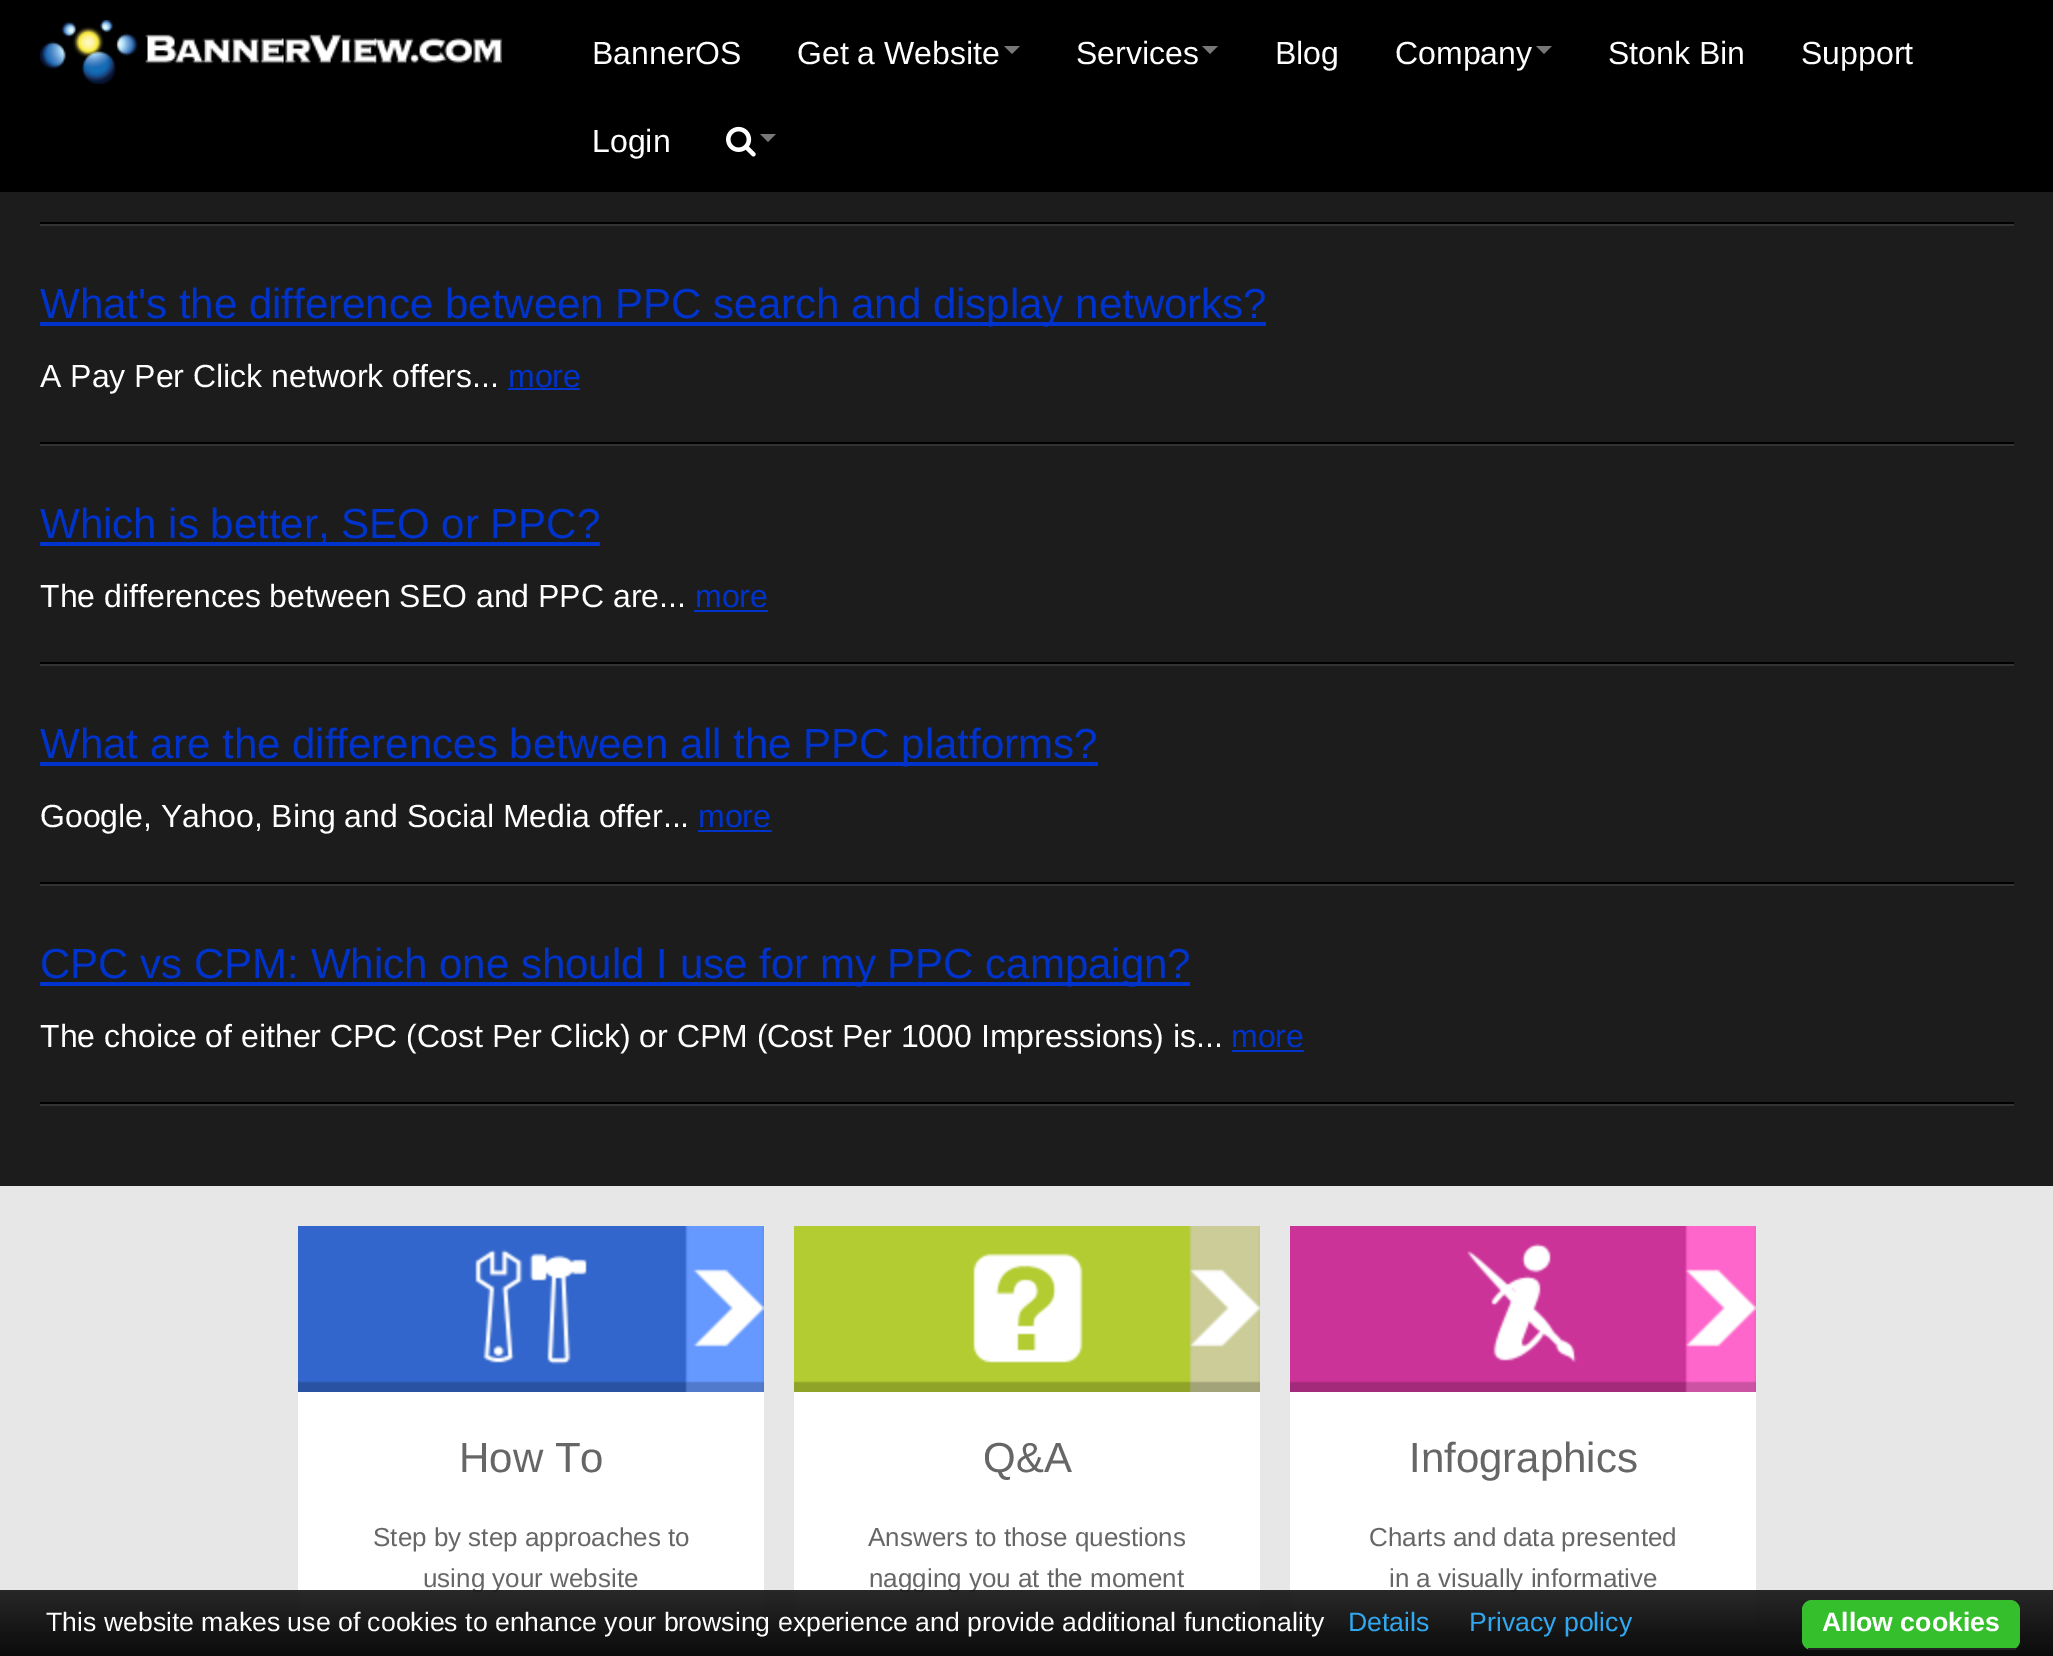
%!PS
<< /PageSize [2053 1656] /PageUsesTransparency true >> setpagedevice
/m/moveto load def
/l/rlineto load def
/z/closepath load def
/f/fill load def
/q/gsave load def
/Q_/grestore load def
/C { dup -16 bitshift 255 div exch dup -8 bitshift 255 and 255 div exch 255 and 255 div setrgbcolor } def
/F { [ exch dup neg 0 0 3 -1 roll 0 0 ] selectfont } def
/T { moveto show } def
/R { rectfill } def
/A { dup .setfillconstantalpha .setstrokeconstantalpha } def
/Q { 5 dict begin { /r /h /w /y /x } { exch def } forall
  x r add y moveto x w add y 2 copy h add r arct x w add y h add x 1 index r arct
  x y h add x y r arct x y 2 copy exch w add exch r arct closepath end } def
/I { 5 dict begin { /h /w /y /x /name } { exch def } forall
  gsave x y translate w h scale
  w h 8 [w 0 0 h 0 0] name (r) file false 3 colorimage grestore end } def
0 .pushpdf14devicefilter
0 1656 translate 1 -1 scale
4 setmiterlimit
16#1C1C1C C
0 0 2053 1656 R
16#000000 C
0 0 2053 192 R
(1.rgb) 40 20 462 64 I
/LiberationSans-Regular 32 F
16#FFFFFF C
(BannerOS) 592 64 T
(Get a Website) 797 64 T
16#777777 C
1004 46 m 16 0 l -8 8 l z f
16#FFFFFF C
(Services) 1076 64 T
16#777777 C
1202 46 m 16 0 l -8 8 l z f
16#FFFFFF C
(Blog) 1275 64 T
(Company) 1395 64 T
16#777777 C
1536 46 m 16 0 l -8 8 l z f
16#FFFFFF C
(Stonk Bin) 1608 64 T
(Support) 1801 64 T
(Login) 592 152 T
(2.rgb) 726 126 30 31 I
16#777777 C
760 134 m 16 0 l -8 8 l z f
16#000000 C
40 222 1974 2 R
16#333333 C
40 224 1974 2 R
16#0033CC C
40 322 1226 4 R
/LiberationSans-Regular 42 F
(What's the difference between PPC search and display networks?) 40 318 T
/LiberationSans-Regular 32 F
16#FFFFFF C
(A Pay Per Click network offers...) 40 387 T
16#0033CC C
(more) 508 387 T
508 388 72 2 R
16#000000 C
40 442 1974 2 R
16#333333 C
40 444 1974 2 R
16#0033CC C
40 542 560 4 R
/LiberationSans-Regular 42 F
(Which is better, SEO or PPC?) 40 538 T
/LiberationSans-Regular 32 F
16#FFFFFF C
(The differences between SEO and PPC are...) 40 607 T
16#0033CC C
(more) 695 607 T
694 610 74 2 R
16#000000 C
40 662 1974 2 R
16#333333 C
40 664 1974 2 R
16#0033CC C
40 762 1058 4 R
/LiberationSans-Regular 42 F
(What are the differences between all the PPC platforms?) 40 758 T
/LiberationSans-Regular 32 F
16#FFFFFF C
(Google, Yahoo, Bing and Social Media offer...) 40 827 T
16#0033CC C
(more) 698 827 T
698 830 74 2 R
16#000000 C
40 882 1974 2 R
16#333333 C
40 884 1974 2 R
16#0033CC C
40 982 1150 4 R
/LiberationSans-Regular 42 F
(CPC vs CPM: Which one should I use for my PPC campaign?) 40 978 T
/LiberationSans-Regular 32 F
16#FFFFFF C
(The choice of either CPC \(Cost Per Click\) or CPM \(Cost Per 1000 Impressions\) is...) 40 1047 T
16#0033CC C
(more) 1231 1047 T
1232 1050 72 2 R
16#000000 C
40 1102 1974 2 R
16#333333 C
40 1104 1974 2 R
16#E7E7E7 C
0 1186 2053 470 R
16#FFFFFF C
298 1392 466 234 R
(3.rgb) 298 1226 466 166 I
/LiberationSans-Regular 42 F
16#666666 C
(How To) 459 1472 T
/LiberationSans-Regular 26 F
(Step by step approaches to) 373 1546 T
(using your website) 423 1587 T
16#FFFFFF C
794 1392 466 234 R
(4.rgb) 794 1226 466 166 I
/LiberationSans-Regular 42 F
16#666666 C
(Q&A) 983 1472 T
/LiberationSans-Regular 26 F
(Answers to those questions) 868 1546 T
(nagging you at the moment) 869 1587 T
16#FFFFFF C
1290 1392 466 234 R
(5.rgb) 1290 1226 466 166 I
/LiberationSans-Regular 42 F
16#666666 C
(Infographics) 1409 1472 T
/LiberationSans-Regular 26 F
(Charts and data presented) 1369 1546 T
(in a visually informative) 1389 1587 T
0.95 A
q 0 1590 m 2053 0 l 0 66 l -2053 0 l z clip newpath
<< /ShadingType 2 /ColorSpace /DeviceRGB /Coords [1033 1590 1033 1656] /Extend [true true] /Function << /FunctionType 2 /Domain [0 1] /C0 [.118 .118 .118] /C1 [0 0 0] /N 1 >> >> shfill Q_
/LiberationSans-Regular 26.65 F
1 A
16#FFFFFF C
(This website makes use of cookies to enhance your browsing experience and provide additional functionality) 46 1631 T
16#31A8F0 C
(Details) 1348 1631 T
(Privacy policy) 1469 1631 T
16#36BF2D C
1802 1600 218 50 10 Q f
16#222222 C
1808 1648 208 2 R
/LiberationSans-Bold 26.65 F
16#FFFFFF C
(Allow cookies) 1822 1631 T
.poppdf14devicefilter showpage
